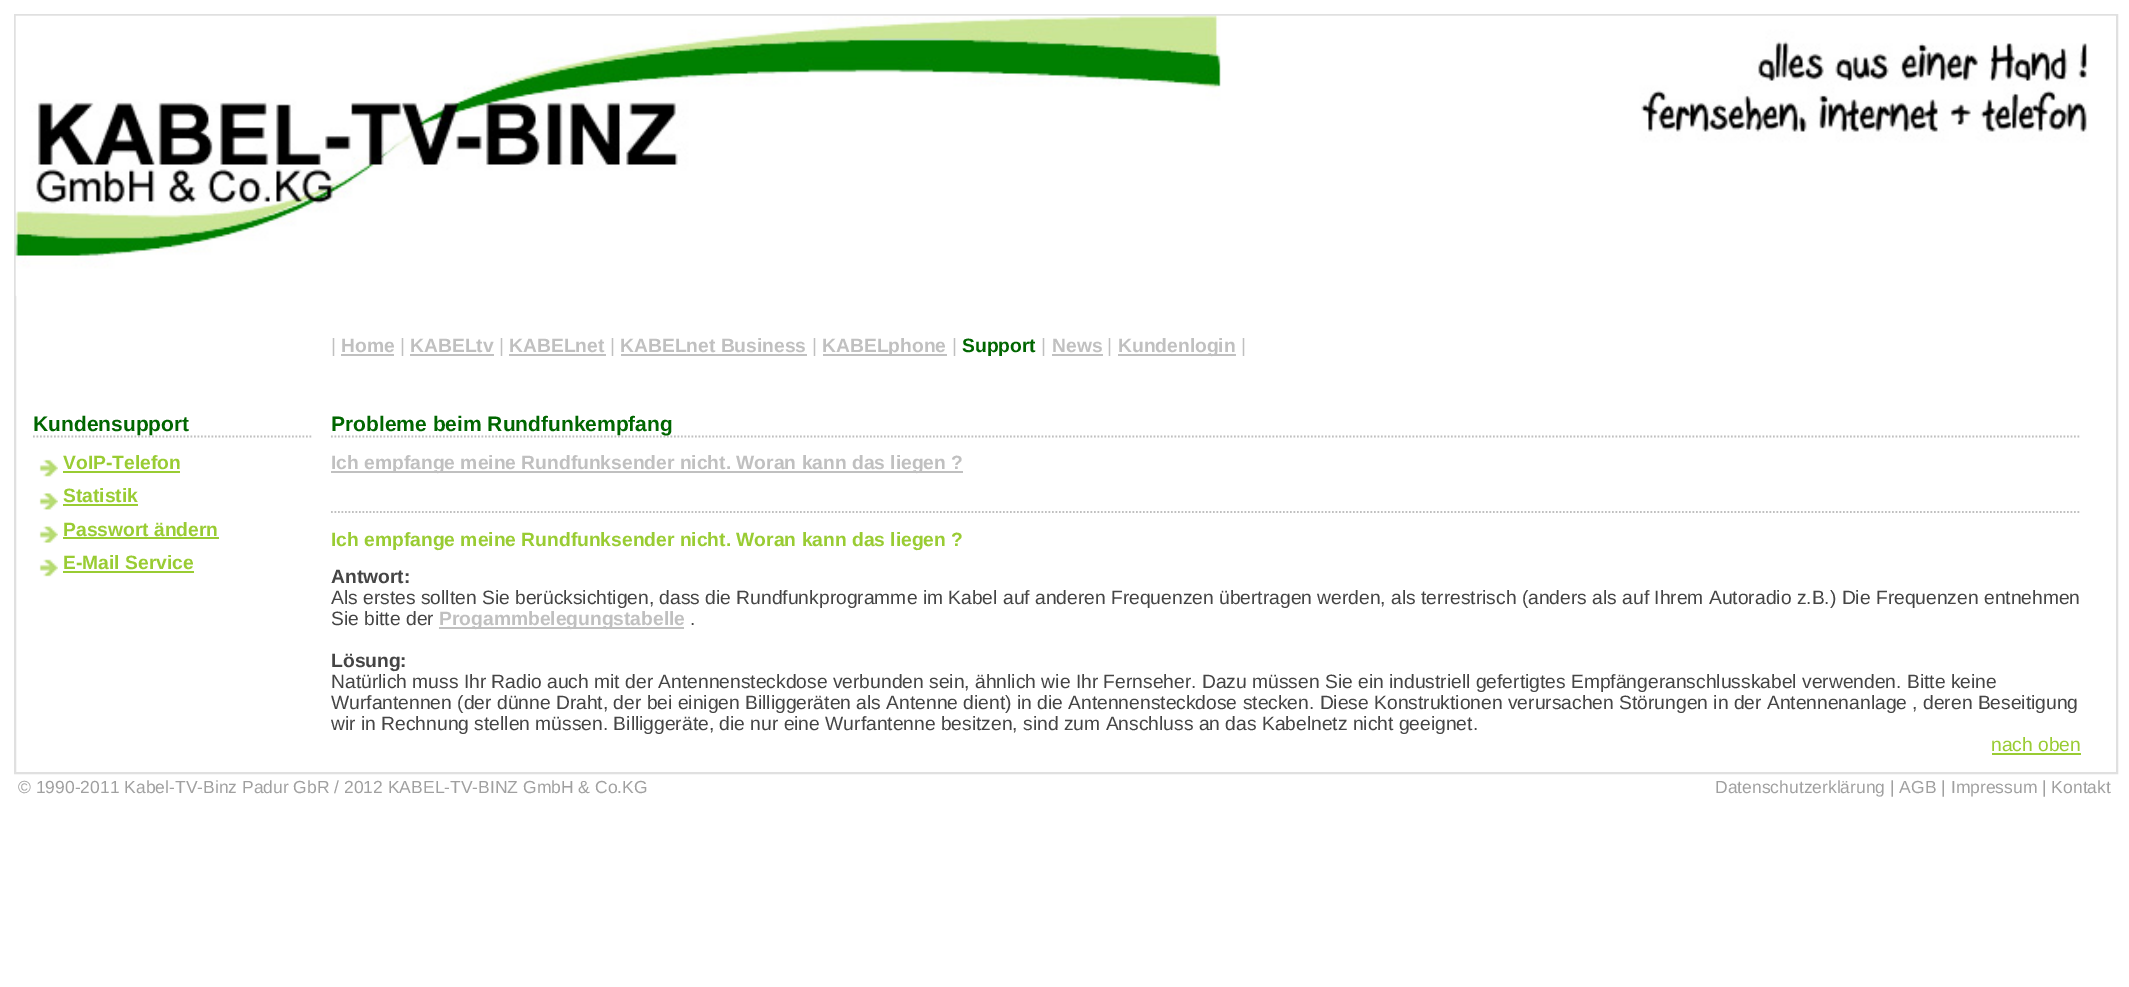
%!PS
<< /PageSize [2129 987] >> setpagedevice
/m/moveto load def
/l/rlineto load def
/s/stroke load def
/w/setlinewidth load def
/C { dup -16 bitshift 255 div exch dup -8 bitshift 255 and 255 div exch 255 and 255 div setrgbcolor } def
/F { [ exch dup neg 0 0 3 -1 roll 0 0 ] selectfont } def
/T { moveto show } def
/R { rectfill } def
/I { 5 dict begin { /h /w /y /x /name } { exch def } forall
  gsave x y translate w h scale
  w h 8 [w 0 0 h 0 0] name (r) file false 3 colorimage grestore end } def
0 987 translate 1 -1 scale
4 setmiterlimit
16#FFFFFF C
0 0 2129 987 R
16#E0E0E0 C
2 w
15 15 2102 758 rectstroke
(1.rgb) 15 15 2101 281 I
/LiberationSans-Regular 19.25 F
16#C0C0C0 C
(|) 331 352 T
/LiberationSans-Bold 19.25 F
(Home) 341 352 T
341 354 53 2 R
/LiberationSans-Regular 19.25 F
(|) 400 352 T
/LiberationSans-Bold 19.25 F
(KABELtv) 410 352 T
410 354 84 2 R
/LiberationSans-Regular 19.25 F
(|) 499 352 T
/LiberationSans-Bold 19.25 F
(KABELnet) 509 352 T
509 354 97 2 R
/LiberationSans-Regular 19.25 F
(|) 610 352 T
/LiberationSans-Bold 19.25 F
(KABELnet Business) 620 352 T
621 354 186 2 R
/LiberationSans-Regular 19.25 F
(|) 812 352 T
823 354 124 2 R
/LiberationSans-Bold 19.25 F
(KABELphone) 822 352 T
/LiberationSans-Regular 19.25 F
(|) 952 352 T
/LiberationSans-Bold 19.25 F
16#006600 C
(Support) 962 352 T
/LiberationSans-Regular 19.25 F
16#C0C0C0 C
(|) 1041 352 T
/LiberationSans-Bold 19.25 F
(News) 1052 352 T
1052 354 51 2 R
/LiberationSans-Regular 19.25 F
(|) 1107 352 T
1118 354 118 2 R
/LiberationSans-Bold 19.25 F
(Kundenlogin) 1118 352 T
/LiberationSans-Regular 19.25 F
(|) 1241 352 T
1.8 w
[1.75 1.75] 0 setdash
33 436.5 m 280 0 l s
/LiberationSans-Bold 21 F
16#006600 C
(Kundensupport) 33 431 T
(2.rgb) 39 459 19 18 I
/LiberationSans-Bold 19.25 F
16#99CC33 C
(VoIP-Telefon) 63 469 T
63 471 117 2 R
(3.rgb) 39 493 19 17 I
(Statistik) 63 502 T
63 504 75 2 R
(4.rgb) 39 526 19 17 I
(Passwort ändern) 63 536 T
63 537 156 2 R
(5.rgb) 39 559 19 18 I
(E-Mail Service) 63 569 T
63 571 131 2 R
16#C0C0C0 C
331 436.5 m 1750 0 l s
/LiberationSans-Bold 21 F
16#006600 C
(Probleme beim Rundfunkempfang) 331 431 T
16#C0C0C0 C
331 471 632 2 R
/LiberationSans-Bold 19.25 F
(Ich empfange meine Rundfunksender nicht. Woran kann das liegen ?) 331 469 T
331 512 m 1750 0 l s
16#99CC33 C
(Ich empfange meine Rundfunksender nicht. Woran kann das liegen ?) 331 546 T
16#454545 C
(Antwort:) 331 583 T
/LiberationSans-Regular 19.25 F
(Als erstes sollten Sie berücksichtigen, dass die Rundfunkprogramme im Kabel auf anderen Frequenzen übertragen werden, als terrestrisch \(anders als auf Ihrem Autoradio z.B.\) Die Frequenzen entnehmen) 331 604 T
(Sie bitte der) 331 625 T
16#C0C0C0 C
439 627 245 2 R
/LiberationSans-Bold 19.25 F
(Progammbelegungstabelle) 439 625 T
/LiberationSans-Regular 19.25 F
16#454545 C
(.) 690 625 T
/LiberationSans-Bold 19.25 F
(Lösung:) 331 667 T
/LiberationSans-Regular 19.25 F
(Natürlich muss Ihr Radio auch mit der Antennensteckdose verbunden sein, ähnlich wie Ihr Fernseher. Dazu müssen Sie ein industriell gefertigtes Empfängeranschlusskabel verwenden. Bitte keine) 331 688 T
(Wurfantennen \(der dünne Draht, der bei einigen Billiggeräten als Antenne dient\) in die Antennensteckdose stecken. Diese Konstruktionen verursachen Störungen in der Antennenanlage , deren Beseitigung) 331 709 T
(wir in Rechnung stellen müssen. Billiggeräte, die nur eine Wurfantenne besitzen, sind zum Anschluss an das Kabelnetz nicht geeignet.) 331 730 T
16#99CC33 C
(nach oben) 1991 751 T
1992 753 89 2 R
/LiberationSans-Regular 17.5 F
16#A0A0A0 C
(© 1990-2011 Kabel-TV-Binz Padur GbR / 2012 KABEL-TV-BINZ GmbH & Co.KG) 18 793 T
(Datenschutzerklärung | AGB | Impressum | Kontakt) 1715 793 T
showpage
